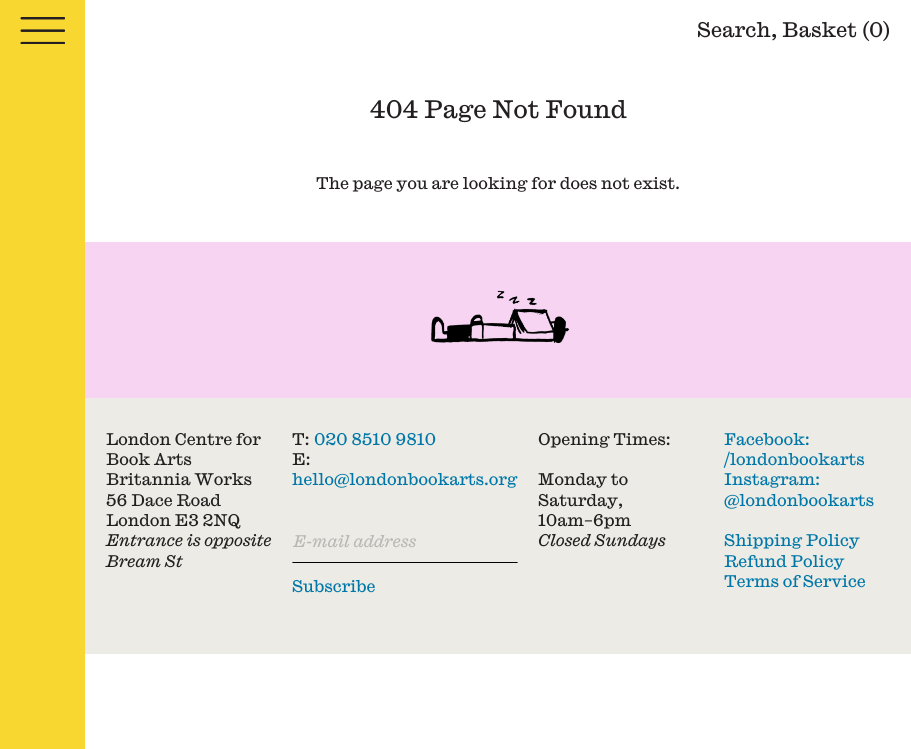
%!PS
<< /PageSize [911 749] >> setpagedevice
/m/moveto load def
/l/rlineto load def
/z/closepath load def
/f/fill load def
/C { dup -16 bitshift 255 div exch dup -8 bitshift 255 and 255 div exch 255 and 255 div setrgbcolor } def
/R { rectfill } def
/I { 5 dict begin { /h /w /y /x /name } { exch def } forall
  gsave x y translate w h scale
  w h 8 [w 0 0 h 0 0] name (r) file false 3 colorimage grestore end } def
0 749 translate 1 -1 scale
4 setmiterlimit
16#FFFFFF C
0 0 911 749 R
16#F9D731 C
0 0 85 749 R
(1.rgb) 20 17 45 27 I
(2.rgb) 698 21 73 17 I
(3.rgb) 772 33 5 8 I
(4.rgb) 782 21 75 17 I
(5.rgb) 863 20 7 22 I
(6.rgb) 870 21 13 17 I
(7.rgb) 883 20 6 22 I
(8.rgb) 370 99 257 24 I
(9.rgb) 316 176 363 16 I
16#ECEBE5 C
85 398 826 256 R
16#F6D4F2 C
85 242 826 156 R
(10.rgb) 431 290 139 54 I
(11.rgb) 106 432 155 14 I
(12.rgb) 106 452 86 14 I
(13.rgb) 106 472 146 14 I
(14.rgb) 106 493 115 14 I
(15.rgb) 106 513 135 16 I
(16.rgb) 105 534 167 15 I
(17.rgb) 105 554 79 14 I
(18.rgb) 292 433 17 13 I
(19.rgb) 314 432 122 14 I
(20.rgb) 292 453 18 13 I
(21.rgb) 292 472 226 16 I
16#000000 C
518 563 m -226 0 l 1 -1 l 224 0 l z f
(22.rgb) 293 535 123 13 I
(23.rgb) 292 579 83 14 I
(24.rgb) 538 432 132 16 I
(25.rgb) 538 473 90 15 I
(26.rgb) 538 493 85 16 I
(27.rgb) 538 513 93 16 I
(28.rgb) 538 533 128 16 I
(29.rgb) 724 432 85 14 I
(30.rgb) 723 451 142 17 I
(31.rgb) 724 473 95 15 I
(32.rgb) 724 493 150 16 I
(33.rgb) 724 533 136 16 I
(34.rgb) 724 554 121 16 I
(35.rgb) 724 574 141 14 I
showpage
